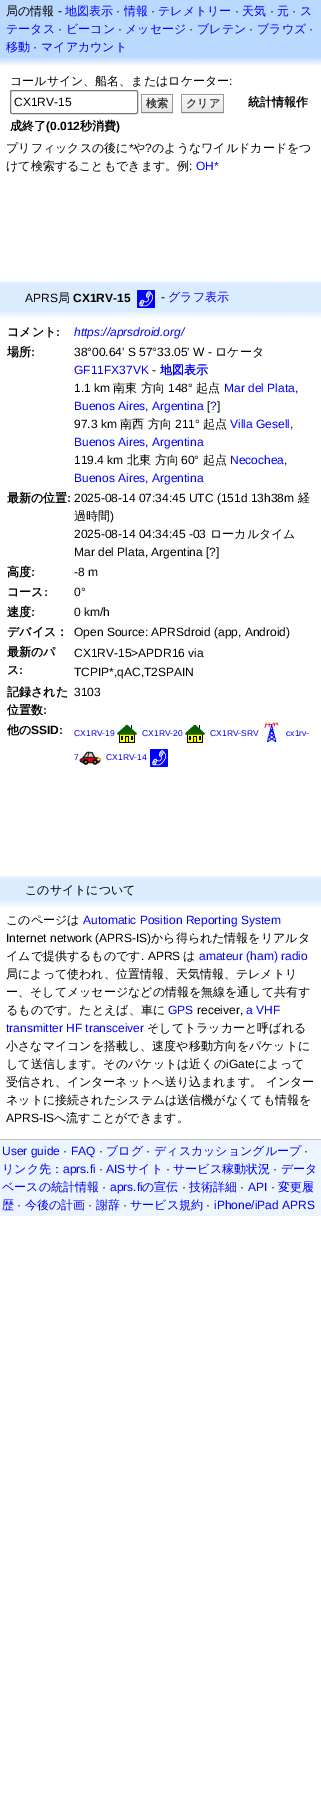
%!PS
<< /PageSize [321 1816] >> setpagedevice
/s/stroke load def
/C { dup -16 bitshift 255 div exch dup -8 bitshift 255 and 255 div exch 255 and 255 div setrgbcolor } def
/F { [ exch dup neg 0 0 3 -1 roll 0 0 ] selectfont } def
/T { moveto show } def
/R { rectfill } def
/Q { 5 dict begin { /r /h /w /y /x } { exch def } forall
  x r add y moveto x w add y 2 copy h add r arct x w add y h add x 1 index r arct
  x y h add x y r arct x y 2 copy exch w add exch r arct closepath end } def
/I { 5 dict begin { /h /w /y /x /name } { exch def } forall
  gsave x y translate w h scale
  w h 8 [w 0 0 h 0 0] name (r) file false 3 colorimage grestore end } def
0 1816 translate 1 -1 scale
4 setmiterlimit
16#FFFFFF C
0 0 321 1816 R
16#BBD9FF C
0 0 321 56 R
/WenQuanYiZenHei-Medium 12 F
16#000000 C
(局の情報) 6 15 T
/LiberationSans-Regular 12 F
(-) 58 15 T
/WenQuanYiZenHei-Medium 12 F
16#0000FF C
(地図表示) 65 15 T
/LiberationSans-Regular 12 F
16#000000 C
(·) 116 15 T
/WenQuanYiZenHei-Medium 12 F
16#0000FF C
(情報) 124 15 T
/LiberationSans-Regular 12 F
16#000000 C
(·) 151 15 T
/WenQuanYiZenHei-Medium 12 F
16#0000FF C
(テレメトリー) 158 15 T
/LiberationSans-Regular 12 F
16#000000 C
(·) 235 15 T
/WenQuanYiZenHei-Medium 12 F
16#0000FF C
(天気) 242 15 T
/LiberationSans-Regular 12 F
16#000000 C
(·) 270 15 T
/WenQuanYiZenHei-Medium 12 F
16#0000FF C
(元) 277 15 T
/LiberationSans-Regular 12 F
16#000000 C
(·) 292 15 T
/WenQuanYiZenHei-Medium 12 F
16#0000FF C
(ス) 300 15 T
(テータス) 6 33 T
/LiberationSans-Regular 12 F
16#000000 C
(·) 58 33 T
/WenQuanYiZenHei-Medium 12 F
16#0000FF C
(ビーコン) 66 33 T
/LiberationSans-Regular 12 F
16#000000 C
(·) 118 33 T
/WenQuanYiZenHei-Medium 12 F
16#0000FF C
(メッセージ) 125 33 T
/LiberationSans-Regular 12 F
16#000000 C
(·) 189 33 T
/WenQuanYiZenHei-Medium 12 F
16#0000FF C
(ブレテン) 197 33 T
/LiberationSans-Regular 12 F
16#000000 C
(·) 249 33 T
/WenQuanYiZenHei-Medium 12 F
16#0000FF C
(ブラウズ) 257 33 T
/LiberationSans-Regular 12 F
16#000000 C
(·) 309 33 T
/WenQuanYiZenHei-Medium 12 F
16#0000FF C
(移動) 6 51 T
/LiberationSans-Regular 12 F
16#000000 C
(·) 33 51 T
/WenQuanYiZenHei-Medium 12 F
16#0000FF C
(マイアカウント) 41 51 T
(1.rgb) 0 56 321 10 I
16#000000 C
(コールサイン、船名、またはロケーター) 10 85 T
/LiberationSans-Regular 12 F
(:) 229 85 T
16#767676 C
10.5 90.5 127 23 1.5 Q s
16#000000 C
(CX1RV-15) 14 106 T
16#E6E6E6 C
141 113 32 1 R
(2.rgb) 142 95 30 17 I
16#999999 C
141 94 32 1 R
172 94 1 19 R
16#888888 C
141 112 32 1 R
16#999999 C
141 94 1 19 R
/WenQuanYiZenHei-Bold 11 F
16#333333 C
(検索) 146 107 T
16#E6E6E6 C
181 113 43 1 R
(3.rgb) 182 95 41 17 I
16#999999 C
181 94 43 1 R
223 94 1 19 R
16#888888 C
181 112 43 1 R
16#999999 C
181 94 1 19 R
16#333333 C
(クリア) 186 107 T
/WenQuanYiZenHei-Bold 12 F
16#000000 C
(統計情報作) 248 106 T
(成終了) 10 130 T
/LiberationSans-Bold 12 F
(\(0.012) 46 130 T
/WenQuanYiZenHei-Bold 12 F
(秒消費) 80 130 T
/LiberationSans-Bold 12 F
(\)) 116 130 T
/WenQuanYiZenHei-Medium 12 F
(プリフィックスの後に) 6 152 T
/LiberationSans-Regular 12 F
(*) 129 152 T
/WenQuanYiZenHei-Medium 12 F
(や) 133 152 T
/LiberationSans-Regular 12 F
(?) 145 152 T
/WenQuanYiZenHei-Medium 12 F
(のようなワイルドカードをつ) 152 152 T
(けて検索することもできます。例) 6 170 T
/LiberationSans-Regular 12 F
(:) 189 170 T
16#0000FF C
(OH*) 196 170 T
(4.rgb) 0 280 321 4 I
16#DCECFF C
0 284 321 26 R
16#000000 C
(APRS) 25 302 T
/WenQuanYiZenHei-Medium 12 F
(局) 58 302 T
/LiberationSans-Bold 12 F
(CX1RV-15) 73 302 T
(5.rgb) 137 290 18 18 I
/LiberationSans-Regular 12 F
(-) 161 301 T
/WenQuanYiZenHei-Medium 12 F
16#0000FF C
(グラフ表示) 168 301 T
(6.rgb) 0 310 321 9 I
/WenQuanYiZenHei-Bold 12 F
16#000000 C
(コメント) 7 336 T
/LiberationSans-Bold 12 F
(:) 56 336 T
/LiberationSans-Italic 12 F
16#0000FF C
(https://aprsdroid.org/) 74 336 T
/WenQuanYiZenHei-Bold 12 F
16#000000 C
(場所) 7 356 T
/LiberationSans-Bold 12 F
(:) 31 356 T
/LiberationSans-Regular 12 F
(38°00.64' S 57°33.05' W -) 74 356 T
/WenQuanYiZenHei-Medium 12 F
(ロケータ) 215 356 T
/LiberationSans-Regular 12 F
16#0000FF C
(GF11FX37VK) 74 374 T
16#000000 C
(-) 152 374 T
/WenQuanYiZenHei-Bold 12 F
16#0000FF C
(地図表示) 160 374 T
/LiberationSans-Regular 12 F
16#000000 C
(1.1 km) 74 392 T
/WenQuanYiZenHei-Medium 12 F
(南東 方向) 113 392 T
/LiberationSans-Regular 12 F
(148°) 168 392 T
/WenQuanYiZenHei-Medium 12 F
(起点) 196 392 T
/LiberationSans-Regular 12 F
16#0000FF C
(Mar del Plata,) 224 392 T
(Buenos Aires, Argentina) 74 410 T
16#000000 C
([) 207 410 T
16#0000FF C
(?) 210 410 T
16#000000 C
(]) 217 410 T
(97.3 km) 74 428 T
/WenQuanYiZenHei-Medium 12 F
(南西 方向) 120 428 T
/LiberationSans-Regular 12 F
(211°) 175 428 T
/WenQuanYiZenHei-Medium 12 F
(起点) 203 428 T
/LiberationSans-Regular 12 F
16#0000FF C
(Villa Gesell,) 230 428 T
(Buenos Aires, Argentina) 74 446 T
16#000000 C
(119.4 km) 74 464 T
/WenQuanYiZenHei-Medium 12 F
(北東 方向) 127 464 T
/LiberationSans-Regular 12 F
(60°) 181 464 T
/WenQuanYiZenHei-Medium 12 F
(起点) 203 464 T
/LiberationSans-Regular 12 F
16#0000FF C
(Necochea,) 230 464 T
(Buenos Aires, Argentina) 74 482 T
/WenQuanYiZenHei-Bold 12 F
16#000000 C
(最新の位置) 7 502 T
/LiberationSans-Bold 12 F
(:) 67 502 T
/LiberationSans-Regular 12 F
(2025-08-14 07:34:45 UTC \(151d 13h38m) 74 502 T
/WenQuanYiZenHei-Medium 12 F
(経) 298 502 T
(過時間) 74 520 T
/LiberationSans-Regular 12 F
(\)) 110 520 T
(2025-08-14 04:34:45 -03) 74 538 T
/WenQuanYiZenHei-Medium 12 F
(ローカルタイム) 210 538 T
/LiberationSans-Regular 12 F
(Mar del Plata, Argentina [?]) 74 556 T
/WenQuanYiZenHei-Bold 12 F
(高度) 7 576 T
/LiberationSans-Bold 12 F
(:) 31 576 T
/LiberationSans-Regular 12 F
(-8 m) 74 576 T
/WenQuanYiZenHei-Bold 12 F
(コース) 7 596 T
/LiberationSans-Bold 12 F
(:) 44 596 T
/LiberationSans-Regular 12 F
(0°) 74 596 T
/WenQuanYiZenHei-Bold 12 F
(速度) 7 616 T
/LiberationSans-Bold 12 F
(:) 31 616 T
/LiberationSans-Regular 12 F
(0 km/h) 74 616 T
/WenQuanYiZenHei-Bold 12 F
(デバイス：) 7 636 T
/LiberationSans-Regular 12 F
(Open Source: APRSdroid \(app, Android\)) 74 636 T
/WenQuanYiZenHei-Bold 12 F
(最新のパ) 7 656 T
(ス) 7 674 T
/LiberationSans-Bold 12 F
(:) 19 674 T
/LiberationSans-Regular 12 F
(CX1RV-15>APDR16 via) 74 657 T
(TCPIP*,qAC,T2SPAIN) 74 676 T
/WenQuanYiZenHei-Bold 12 F
(記録された) 7 696 T
(位置数) 7 714 T
/LiberationSans-Bold 12 F
(:) 43 714 T
/LiberationSans-Regular 12 F
(3103) 74 696 T
/WenQuanYiZenHei-Bold 12 F
(他の) 7 734 T
/LiberationSans-Bold 12 F
(SSID:) 31 734 T
/LiberationSans-Regular 8.5 F
16#0000FF C
(CX1RV-19) 74 736 T
(7.rgb) 117 724 20 19 I
(CX1RV-20) 142 736 T
(7.rgb) 185 724 20 19 I
(CX1RV-SRV) 210 736 T
(8.rgb) 264 722 15 21 I
(cx1rv-) 286 736 T
(7) 74 760 T
(9.rgb) 79 751 22 14 I
(CX1RV-14) 106 760 T
(10.rgb) 150 749 18 18 I
(4.rgb) 0 875 321 4 I
16#DCECFF C
0 879 321 20 R
/WenQuanYiZenHei-Medium 12 F
16#000000 C
(このサイトについて) 25 894 T
(6.rgb) 0 899 321 9 I
(このページは) 6 924 T
/LiberationSans-Regular 12 F
16#0000FF C
(Automatic Position Reporting System) 83 924 T
16#000000 C
(Internet network \(APRS-IS\)) 6 942 T
/WenQuanYiZenHei-Medium 12 F
(から得られた情報をリアルタ) 151 942 T
(イムで提供するものです) 6 960 T
/LiberationSans-Regular 12 F
(. APRS) 141 960 T
/WenQuanYiZenHei-Medium 12 F
(は) 183 960 T
/LiberationSans-Regular 12 F
16#0000FF C
(amateur \(ham\) radio) 199 960 T
/WenQuanYiZenHei-Medium 12 F
16#000000 C
(局によって使われ、位置情報、天気情報、テレメトリ) 6 978 T
(ー、そしてメッセージなどの情報を無線を通して共有す) 6 996 T
(るものです。たとえば、車に) 6 1014 T
/LiberationSans-Regular 12 F
16#0000FF C
(GPS) 168 1014 T
16#000000 C
(receiver,) 197 1014 T
16#0000FF C
(a VHF) 246 1014 T
(transmitter HF transceiver) 6 1032 T
/WenQuanYiZenHei-Medium 12 F
16#000000 C
(そしてトラッカーと呼ばれる) 147 1032 T
(小さなマイコンを搭載し、速度や移動方向をパケットに) 6 1050 T
(して送信します。そのパケットは近くの) 6 1068 T
/LiberationSans-Regular 12 F
(iGate) 226 1068 T
/WenQuanYiZenHei-Medium 12 F
(によって) 255 1068 T
(受信され、インターネットへ送り込まれます。 インター) 6 1086 T
(ネットに接続されたシステムは送信機がなくても情報を) 6 1104 T
/LiberationSans-Regular 12 F
(APRS-IS) 6 1122 T
/WenQuanYiZenHei-Medium 12 F
(へ流すことができます。) 54 1122 T
16#EBF4FF C
0 1140 321 76 R
16#BDBDBD C
0 1139 321 1 R
/LiberationSans-Regular 12 F
16#0000FF C
(User guide) 2 1155 T
16#000000 C
(·) 63 1155 T
16#0000FF C
(FAQ) 71 1155 T
16#000000 C
(·) 99 1155 T
/WenQuanYiZenHei-Medium 12 F
16#0000FF C
(ブログ) 106 1155 T
/LiberationSans-Regular 12 F
16#000000 C
(·) 146 1155 T
/WenQuanYiZenHei-Medium 12 F
16#0000FF C
(ディスカッショングループ) 154 1155 T
/LiberationSans-Regular 12 F
16#000000 C
(·) 304 1155 T
/WenQuanYiZenHei-Medium 12 F
16#0000FF C
(リンク先：) 2 1173 T
/LiberationSans-Regular 12 F
(aprs.fi) 63 1173 T
16#000000 C
(·) 99 1173 T
16#0000FF C
(AIS) 106 1173 T
/WenQuanYiZenHei-Medium 12 F
(サイト) 126 1173 T
/LiberationSans-Regular 12 F
16#000000 C
(·) 166 1173 T
/WenQuanYiZenHei-Medium 12 F
16#0000FF C
(サービス稼動状況) 173 1173 T
/LiberationSans-Regular 12 F
16#000000 C
(·) 273 1173 T
/WenQuanYiZenHei-Medium 12 F
16#0000FF C
(データ) 281 1173 T
(ベースの統計情報) 2 1191 T
/LiberationSans-Regular 12 F
16#000000 C
(·) 102 1191 T
16#0000FF C
(aprs.fi) 110 1191 T
/WenQuanYiZenHei-Medium 12 F
(の宣伝) 142 1191 T
/LiberationSans-Regular 12 F
16#000000 C
(·) 182 1191 T
/WenQuanYiZenHei-Medium 12 F
16#0000FF C
(技術詳細) 189 1191 T
/LiberationSans-Regular 12 F
16#000000 C
(·) 240 1191 T
16#0000FF C
(API) 248 1191 T
16#000000 C
(·) 271 1191 T
/WenQuanYiZenHei-Medium 12 F
16#0000FF C
(変更履) 278 1191 T
(歴) 2 1209 T
/LiberationSans-Regular 12 F
16#000000 C
(·) 17 1209 T
/WenQuanYiZenHei-Medium 12 F
16#0000FF C
(今後の計画) 25 1209 T
/LiberationSans-Regular 12 F
16#000000 C
(·) 88 1209 T
/WenQuanYiZenHei-Medium 12 F
16#0000FF C
(謝辞) 96 1209 T
/LiberationSans-Regular 12 F
16#000000 C
(·) 123 1209 T
/WenQuanYiZenHei-Medium 12 F
16#0000FF C
(サービス規約) 130 1209 T
/LiberationSans-Regular 12 F
16#000000 C
(·) 206 1209 T
16#0000FF C
(iPhone/iPad APRS) 214 1209 T
showpage
